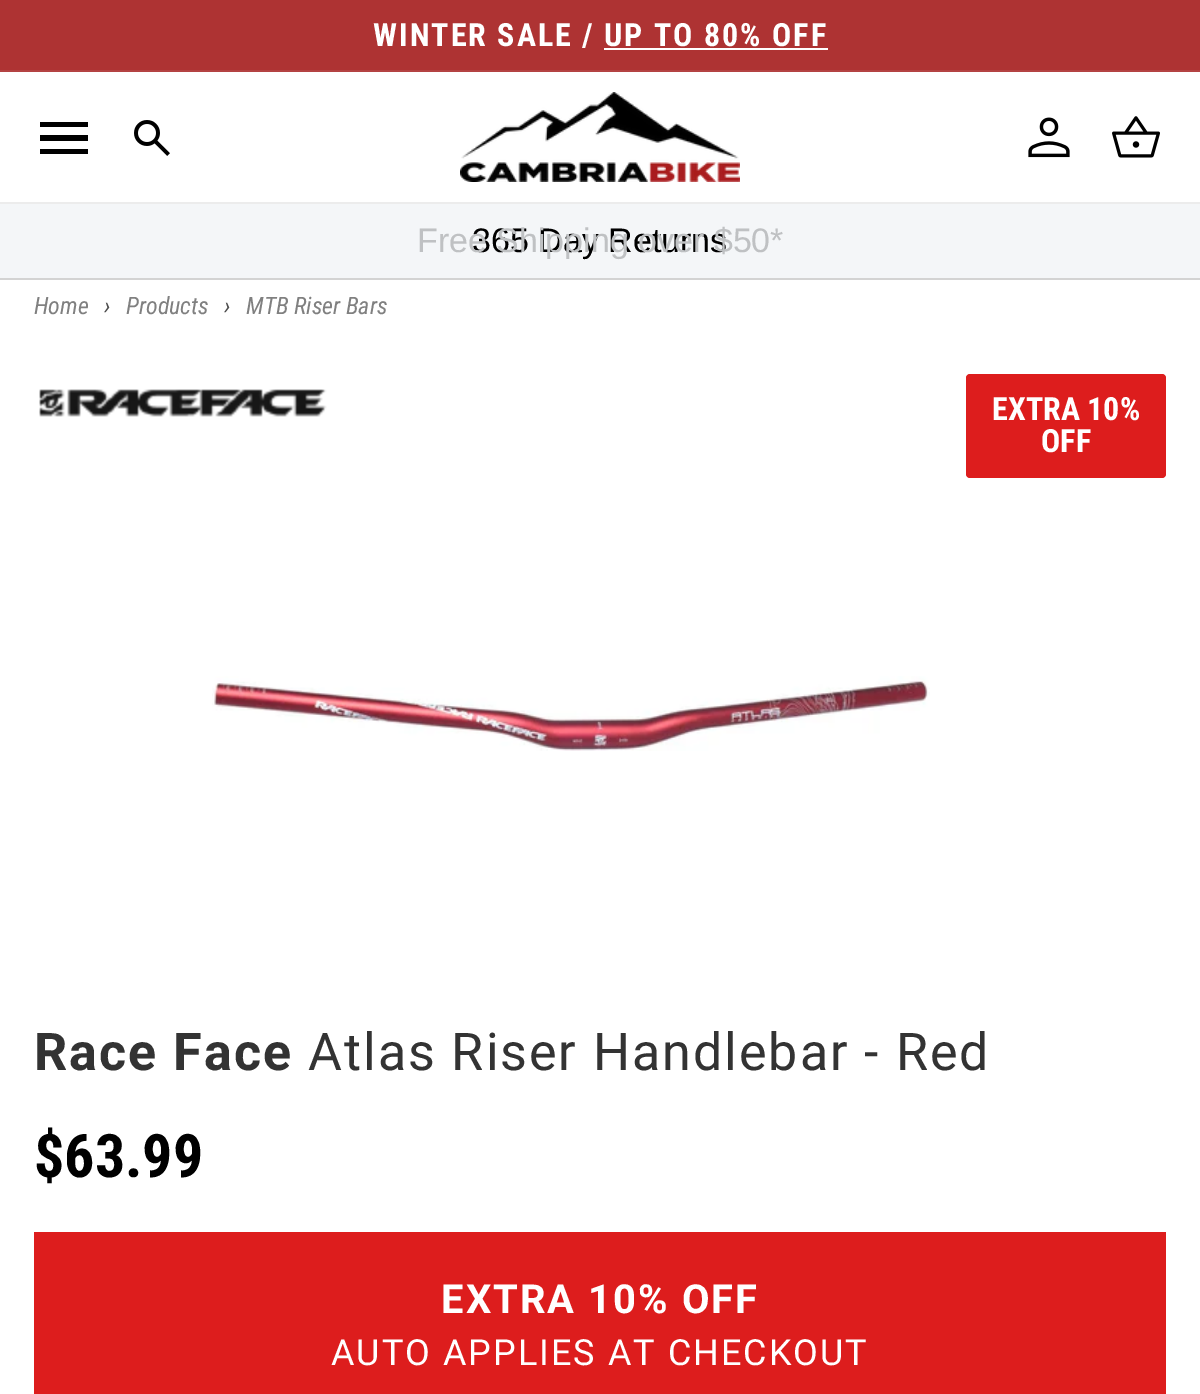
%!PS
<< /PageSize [1200 1394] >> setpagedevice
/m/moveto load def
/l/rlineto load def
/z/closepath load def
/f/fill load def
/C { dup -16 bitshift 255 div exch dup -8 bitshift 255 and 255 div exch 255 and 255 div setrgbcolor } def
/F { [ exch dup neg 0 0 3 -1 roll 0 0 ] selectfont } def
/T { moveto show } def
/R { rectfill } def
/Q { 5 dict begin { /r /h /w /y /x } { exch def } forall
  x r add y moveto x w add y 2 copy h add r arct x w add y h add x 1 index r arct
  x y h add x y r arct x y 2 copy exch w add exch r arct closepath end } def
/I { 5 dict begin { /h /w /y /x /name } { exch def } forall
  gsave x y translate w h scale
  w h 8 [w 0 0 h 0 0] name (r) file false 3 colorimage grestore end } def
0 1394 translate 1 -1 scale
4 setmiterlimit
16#FFFFFF C
0 0 1200 1394 R
16#AE3333 C
0 0 1200 70 R
16#B44343 C
0 70 1200 2 R
/RobotoCondensed-Bold 32 F
16#FFFFFF C
373 46 m 2 0 (WINTER SALE / UP TO 80% OFF) ashow
604 48 224 2 R
16#ECECEC C
0 202 1200 2 R
16#000000 C
40 154 m 0 -5 l 48 0 l 0 5 l z 40 141 m 0 -6 l 48 0 l 0 6 l z 40 127 m 0 -5 l 48 0 l 0 5 l z f
(1.rgb) 134 120 36 36 I
(2.rgb) 460 92 280 90 I
(3.rgb) 1028 117 42 41 I
(4.rgb) 1112 116 48 42 I
16#F4F6F8 C
0 204 1200 74 R
16#D3D3D3 C
0 278 1200 2 R
/LiberationSans-Regular 34 F
16#000000 C
(365 Day Returns) 472 252 T
16#BFC1C3 C
(Free Shipping over $50*) 417 252 T
/RobotoCondensed-Italic 24 F
16#808080 C
(Home) 34 314 T
16#4D4D4D C
(›) 104 314 T
16#808080 C
(Products) 126 314 T
16#4D4D4D C
(›) 224 314 T
16#808080 C
(MTB Riser Bars) 246 314 T
(5.rgb) 39 389 288 28 I
16#DD1D1D C
966 374 200 104 4 Q f
/RobotoCondensed-Bold 32 F
16#FFFFFF C
(EXTRA 10%) 992 420 T
(OFF) 1041 452 T
(6.rgb) 212 676 718 75 I
/Roboto-Bold 52 F
16#333333 C
34 1070 m 2 0 (Race Face) ashow
/Roboto-Regular 52 F
308 1070 m 2 0 (Atlas Riser Handlebar - Red) ashow
/RobotoCondensed-Bold 60 F
16#000000 C
($63.99) 34 1177 T
16#DD1D1D C
34 1232 1132 162 R
/Roboto-Bold 40 F
16#FFFFFF C
441 1313 m 2 0 (EXTRA 10% OFF) ashow
/Roboto-Regular 36 F
331 1365 m 2 0 (AUTO APPLIES AT CHECKOUT) ashow
showpage
